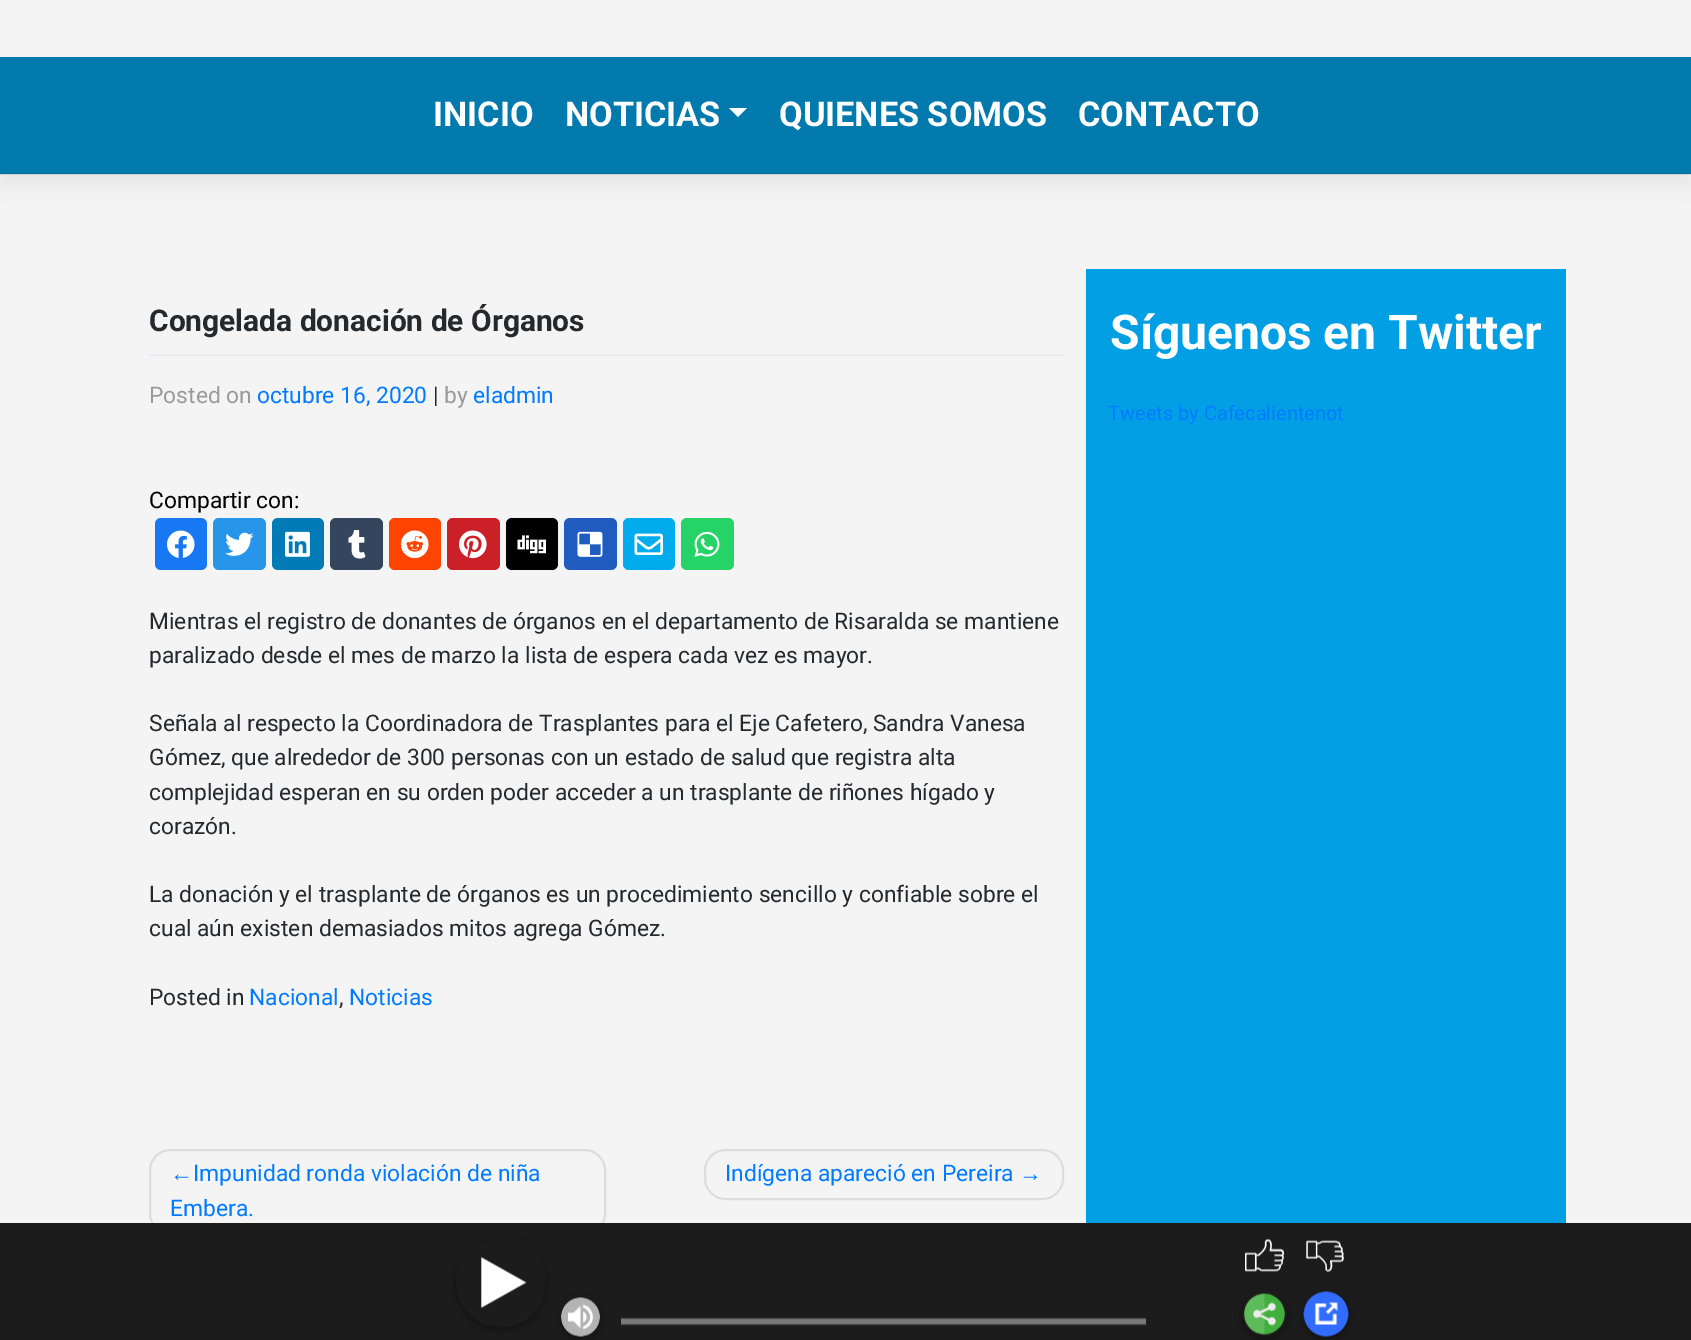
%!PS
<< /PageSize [1691 1340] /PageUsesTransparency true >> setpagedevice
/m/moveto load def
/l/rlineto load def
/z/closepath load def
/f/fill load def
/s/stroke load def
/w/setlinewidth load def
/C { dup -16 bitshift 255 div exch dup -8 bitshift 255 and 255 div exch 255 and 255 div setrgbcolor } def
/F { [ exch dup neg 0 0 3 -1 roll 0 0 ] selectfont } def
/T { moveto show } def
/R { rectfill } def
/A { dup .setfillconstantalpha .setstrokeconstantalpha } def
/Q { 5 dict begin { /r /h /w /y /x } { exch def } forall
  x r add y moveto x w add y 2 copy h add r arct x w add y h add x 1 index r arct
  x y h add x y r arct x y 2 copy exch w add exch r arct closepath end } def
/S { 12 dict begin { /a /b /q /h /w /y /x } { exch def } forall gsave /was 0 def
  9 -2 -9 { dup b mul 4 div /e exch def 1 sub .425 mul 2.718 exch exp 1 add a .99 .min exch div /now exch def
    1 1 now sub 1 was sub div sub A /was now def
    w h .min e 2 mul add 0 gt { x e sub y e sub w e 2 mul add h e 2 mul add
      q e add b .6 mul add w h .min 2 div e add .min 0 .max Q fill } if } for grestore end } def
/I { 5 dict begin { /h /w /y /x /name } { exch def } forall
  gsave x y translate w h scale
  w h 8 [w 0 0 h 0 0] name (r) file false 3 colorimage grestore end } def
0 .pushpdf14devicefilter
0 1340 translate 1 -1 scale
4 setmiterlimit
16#F4F4F4 C
0 0 1691 1340 R
16#000000 C
0 69 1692 117 0 11.5 .05 S
16#027AAE C
0 57 1691 117 R
0.1 A
16#000000 C
0 173 1691 2 R
/Roboto-Bold 34.25 F
1 A
16#FFFFFF C
(INICIO) 433 126 T
(NOTICIAS) 565 126 T
729 108 m 18 0 l -9 9 l z f
(QUIENES SOMOS) 779 126 T
(CONTACTO) 1078 126 T
16#EAECEF C
149 354 915 2 R
/Roboto-Bold 29.9 F
16#24292E C
(Congelada donación de Órganos) 149 331 T
/Roboto-Regular 22.8 F
16#9A9A9A C
(Posted on) 149 403 T
16#007BFF C
(octubre 16, 2020) 257 403 T
16#24292E C
(|) 433 403 T
16#9A9A9A C
(by) 444 403 T
16#007BFF C
(eladmin) 473 403 T
16#000000 C
(Compartir con:) 149 508 T
16#1877F2 C
155 518 52 52 6 Q f
(1.rgb) 166 530 29 28 I
16#2795E9 C
213 518 53 52 6 Q f
(2.rgb) 225 532 29 24 I
16#007BB6 C
272 518 52 52 6 Q f
(3.rgb) 285 531 25 26 I
16#34465D C
330 518 53 52 6 Q f
(4.rgb) 348 530 18 29 I
16#FF4301 C
389 518 52 52 6 Q f
(5.rgb) 400 530 29 29 I
16#CB2027 C
447 518 53 52 6 Q f
(6.rgb) 459 530 28 29 I
16#000000 C
506 518 52 52 6 Q f
(7.rgb) 517 535 29 19 I
16#205CC0 C
564 518 53 52 6 Q f
(8.rgb) 577 531 26 26 I
16#00ACEE C
623 518 52 52 6 Q f
(9.rgb) 634 533 29 22 I
16#25D366 C
681 518 53 52 6 Q f
(10.rgb) 694 531 26 26 I
16#24292E C
(Mientras el registro de donantes de órganos en el departamento de Risaralda se mantiene) 149 629 T
(paralizado desde el mes de marzo la lista de espera cada vez es mayor.) 149 663 T
(Señala al respecto la Coordinadora de Trasplantes para el Eje Cafetero, Sandra Vanesa) 149 731 T
(Gómez, que alrededor de 300 personas con un estado de salud que registra alta) 149 765 T
(complejidad esperan en su orden poder acceder a un trasplante de riñones hígado y) 149 800 T
(corazón.) 149 834 T
(La donación y el trasplante de órganos es un procedimiento sencillo y confiable sobre el) 149 902 T
(cual aún existen demasiados mitos agrega Gómez.) 149 936 T
(Posted in) 149 1005 T
16#007BFF C
(Nacional) 249 1005 T
16#24292E C
(,) 339 1005 T
16#007BFF C
(Noticias) 349 1005 T
16#DDDDDD C
2 w
150 1150 455 84 20 Q s
/LiberationSans-Regular 22.8 F
16#007BFF C
(←) 170 1181 T
/Roboto-Regular 22.8 F
(Impunidad ronda violación de niña) 193 1181 T
(Embera.) 170 1216 T
16#DDDDDD C
705 1150 358 49 20 Q s
16#007BFF C
(Indígena apareció en Pereira) 725 1181 T
/LiberationSans-Regular 22.8 F
(→) 1019 1181 T
16#029FE4 C
1086 269 480 954 R
/Roboto-Bold 48 F
16#FFFFFF C
(Síguenos en Twitter) 1110 349 T
/Roboto-Regular 20 F
16#007BFF C
(Tweets by Cafecalientenot) 1108 420 T
(11.rgb) 0 1223 1691 117 I
.poppdf14devicefilter showpage
